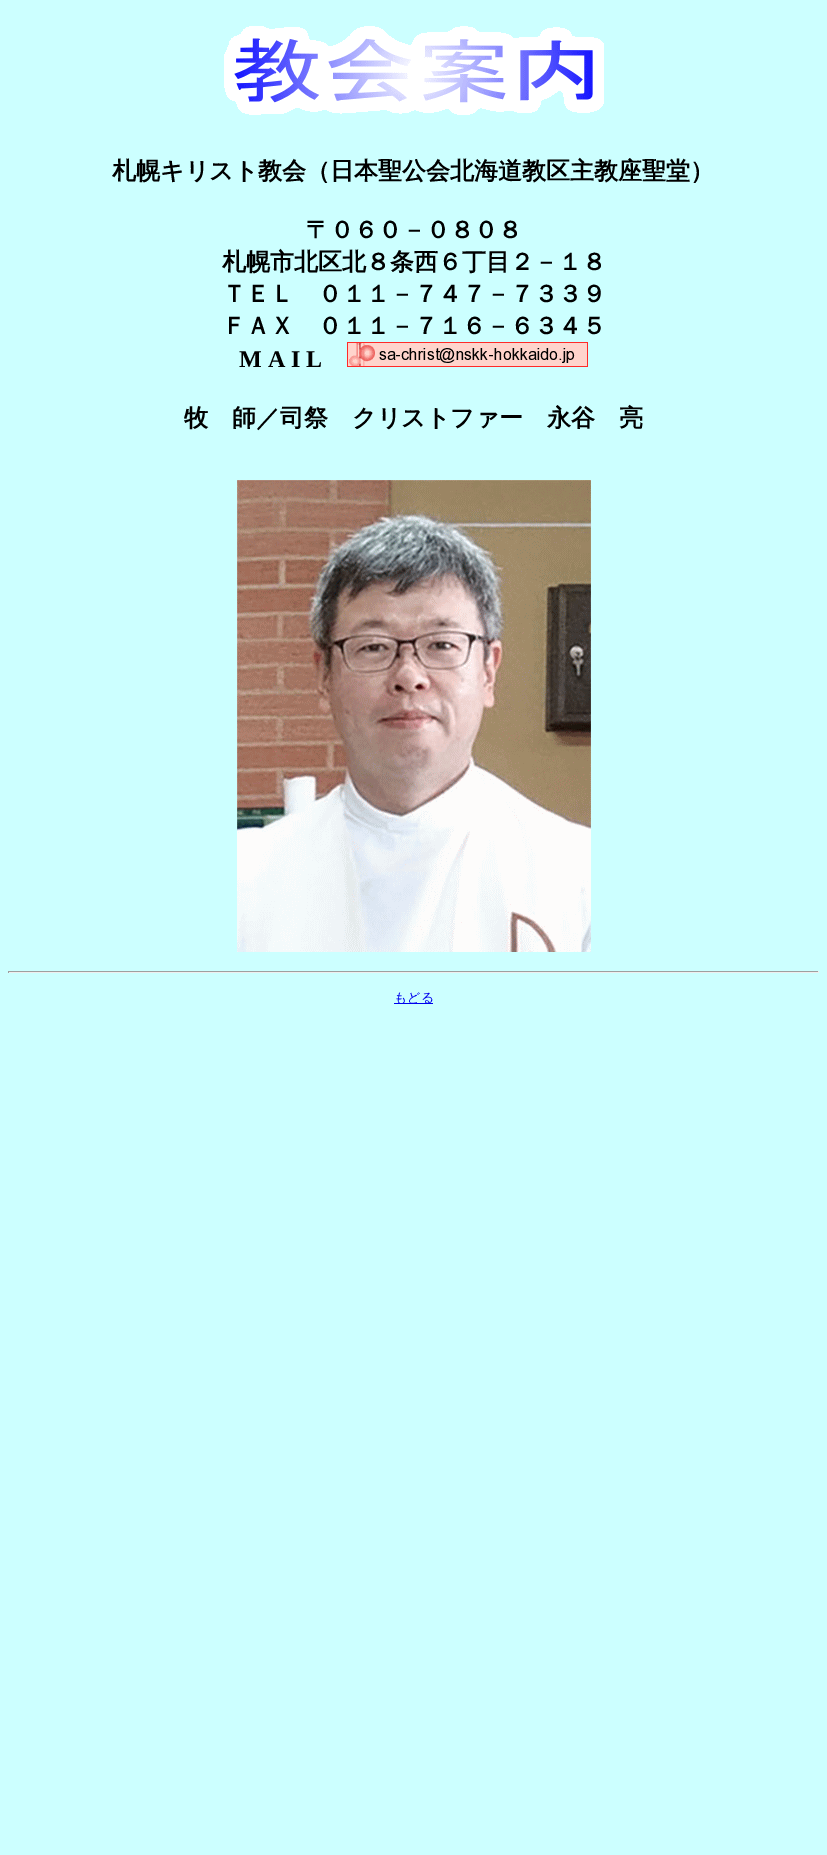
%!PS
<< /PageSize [827 1855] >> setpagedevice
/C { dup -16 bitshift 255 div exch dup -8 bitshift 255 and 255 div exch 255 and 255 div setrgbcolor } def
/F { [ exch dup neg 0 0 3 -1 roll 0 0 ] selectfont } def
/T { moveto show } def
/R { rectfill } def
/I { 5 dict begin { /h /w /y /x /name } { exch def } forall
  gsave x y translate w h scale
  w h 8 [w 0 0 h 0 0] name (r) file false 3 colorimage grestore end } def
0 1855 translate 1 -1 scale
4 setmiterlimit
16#CCFFFF C
0 0 827 1855 R
(1.rgb) 224 26 380 89 I
/WenQuanYiZenHei-Bold 24 F
16#000000 C
(札幌キリスト教会（日本聖公会北海道教区主教座聖堂）) 112 179 T
(〒０６０－０８０８) 306 238 T
(札幌市北区北８条西６丁目２－１８) 222 270 T
(ＴＥＬ　０１１－７４７－７３３９) 222 302 T
(ＦＡＸ　０１１－７１６－６３４５) 222 334 T
/LiberationSerif-Bold 24 F
(M A I L) 239 367 T
(2.rgb) 347 342 241 25 I
/WenQuanYiZenHei-Bold 24 F
(牧　師／司祭　クリストファー　永谷　亮) 184 426 T
(3.rgb) 237 480 354 472 I
16#9F9F9F C
8 971 811 1 R
16#EEEEEE C
818 971 1 2 R
8 972 811 1 R
16#9F9F9F C
8 971 1 2 R
16#0000EE C
394 1003 39 1 R
/WenQuanYiZenHei-Medium 13 F
(もどる) 394 1002 T
showpage
